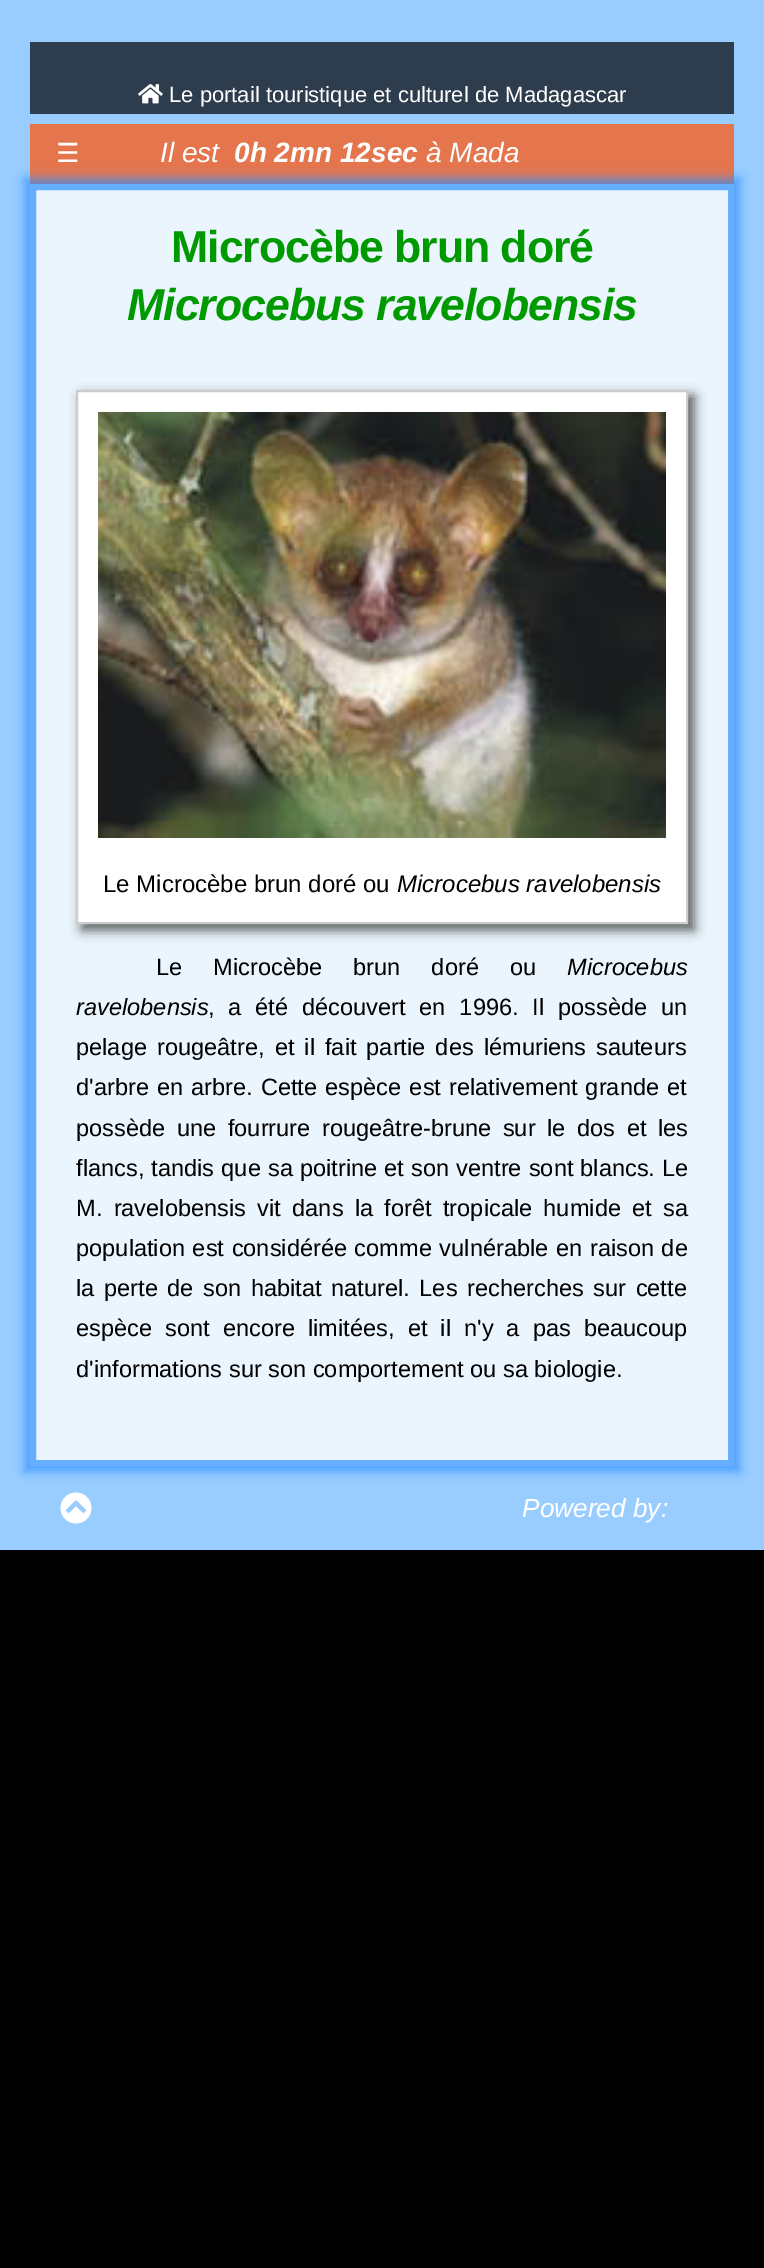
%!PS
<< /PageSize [764 2268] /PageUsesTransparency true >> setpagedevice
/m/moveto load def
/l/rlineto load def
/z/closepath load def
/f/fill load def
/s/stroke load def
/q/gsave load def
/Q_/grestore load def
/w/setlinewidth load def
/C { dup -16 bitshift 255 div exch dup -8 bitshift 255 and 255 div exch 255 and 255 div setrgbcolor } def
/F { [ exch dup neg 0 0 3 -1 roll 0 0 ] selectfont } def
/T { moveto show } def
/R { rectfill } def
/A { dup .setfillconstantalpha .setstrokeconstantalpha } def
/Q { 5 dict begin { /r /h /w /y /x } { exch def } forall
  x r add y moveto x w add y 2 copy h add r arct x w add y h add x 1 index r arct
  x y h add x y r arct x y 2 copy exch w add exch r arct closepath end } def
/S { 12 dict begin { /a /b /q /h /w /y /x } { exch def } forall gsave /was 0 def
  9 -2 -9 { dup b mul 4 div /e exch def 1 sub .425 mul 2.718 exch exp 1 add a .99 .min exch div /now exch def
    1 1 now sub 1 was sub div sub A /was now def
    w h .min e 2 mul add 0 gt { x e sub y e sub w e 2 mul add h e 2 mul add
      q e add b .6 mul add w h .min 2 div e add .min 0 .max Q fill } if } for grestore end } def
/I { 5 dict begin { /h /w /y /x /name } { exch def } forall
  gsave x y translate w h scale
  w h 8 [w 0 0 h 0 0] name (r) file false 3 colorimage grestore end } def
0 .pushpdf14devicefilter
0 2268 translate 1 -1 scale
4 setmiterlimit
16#000000 C
0 0 764 2268 R
16#99CCFF C
0 0 764 1550 R
16#2E3D4D C
30 42 704 72 R
(1.rgb) 138 84 25 20 I
/LiberationSans-Regular 22 F
16#FFFFFF C
(Le portail touristique et culturel de Madagascar) 169 102 T
16#E4754D C
30 124 704 60 R
/DejaVuSans-Regular 26.25 F
16#FFFFFF C
(☰) 56 162 T
16#2D8FFF C
24 178 716 1294 0 5 .7 S
/LiberationSans-Italic 28 F
16#FFFFFF C
(Il est) 160 162 T
/LiberationSans-BoldItalic 28 F
(0h 2mn 12sec) 234 162 T
/LiberationSans-Italic 28 F
(à Mada) 426 162 T
16#EAF5FE C
33 187 m 698 0 l 0 1276 l -698 0 l z q f Q_
16#66AEFF C
6 w
s
/LiberationSans-Bold 44.6 F
16#009900 C
171 262 m -1 0 (Microcèbe brun doré) ashow
/LiberationSans-BoldItalic 44.6 F
127 320 m -1 0 (Microcebus ravelobensis) ashow
16#323232 C
82 396 612 534 0 6 .8 S
16#FFFFFF C
77 391 m 610 0 l 0 532 l -610 0 l z q f Q_
16#CCCCCC C
2 w
s
(2.rgb) 98 412 568 426 I
/LiberationSans-Regular 24 F
16#000000 C
(Le Microcèbe brun doré ou) 103 892 T
/LiberationSans-Italic 24 F
(Microcebus ravelobensis) 397 892 T
/LiberationSans-Regular 23.6 F
156 975 m 24.5 0 32 (Le Microcèbe brun doré ou) widthshow
/LiberationSans-Italic 23.6 F
(Microcebus) 567 975 T
(ravelobensis) 76 1015 T
/LiberationSans-Regular 23.6 F
208 1015 m 7.25 0 32 (, a été découvert en 1996. Il possède un) widthshow
76 1055 m 3.5 0 32 (pelage rougeâtre, et il fait partie des lémuriens sauteurs) widthshow
76 1095 m 1.5 0 32 (d'arbre en arbre. Cette espèce est relativement grande et) widthshow
76 1136 m 5 0 32 (possède une fourrure rougeâtre-brune sur le dos et les) widthshow
76 1176 m .5 0 32 (flancs, tandis que sa poitrine et son ventre sont blancs. Le) widthshow
76 1216 m 4.75 0 32 (M. ravelobensis vit dans la forêt tropicale humide et sa) widthshow
76 1256 m 1 0 32 (population est considérée comme vulnérable en raison de) widthshow
76 1296 m 3 0 32 (la perte de son habitat naturel. Les recherches sur cette) widthshow
76 1336 m 6.5 0 32 (espèce sont encore limitées, et il n'y a pas beaucoup) widthshow
(d'informations sur son comportement ou sa biologie.) 76 1377 T
(3.rgb) 60 1492 32 32 I
/LiberationSans-Italic 26.25 F
16#FFFFFF C
(Powered by:) 522 1517 T
.poppdf14devicefilter showpage
